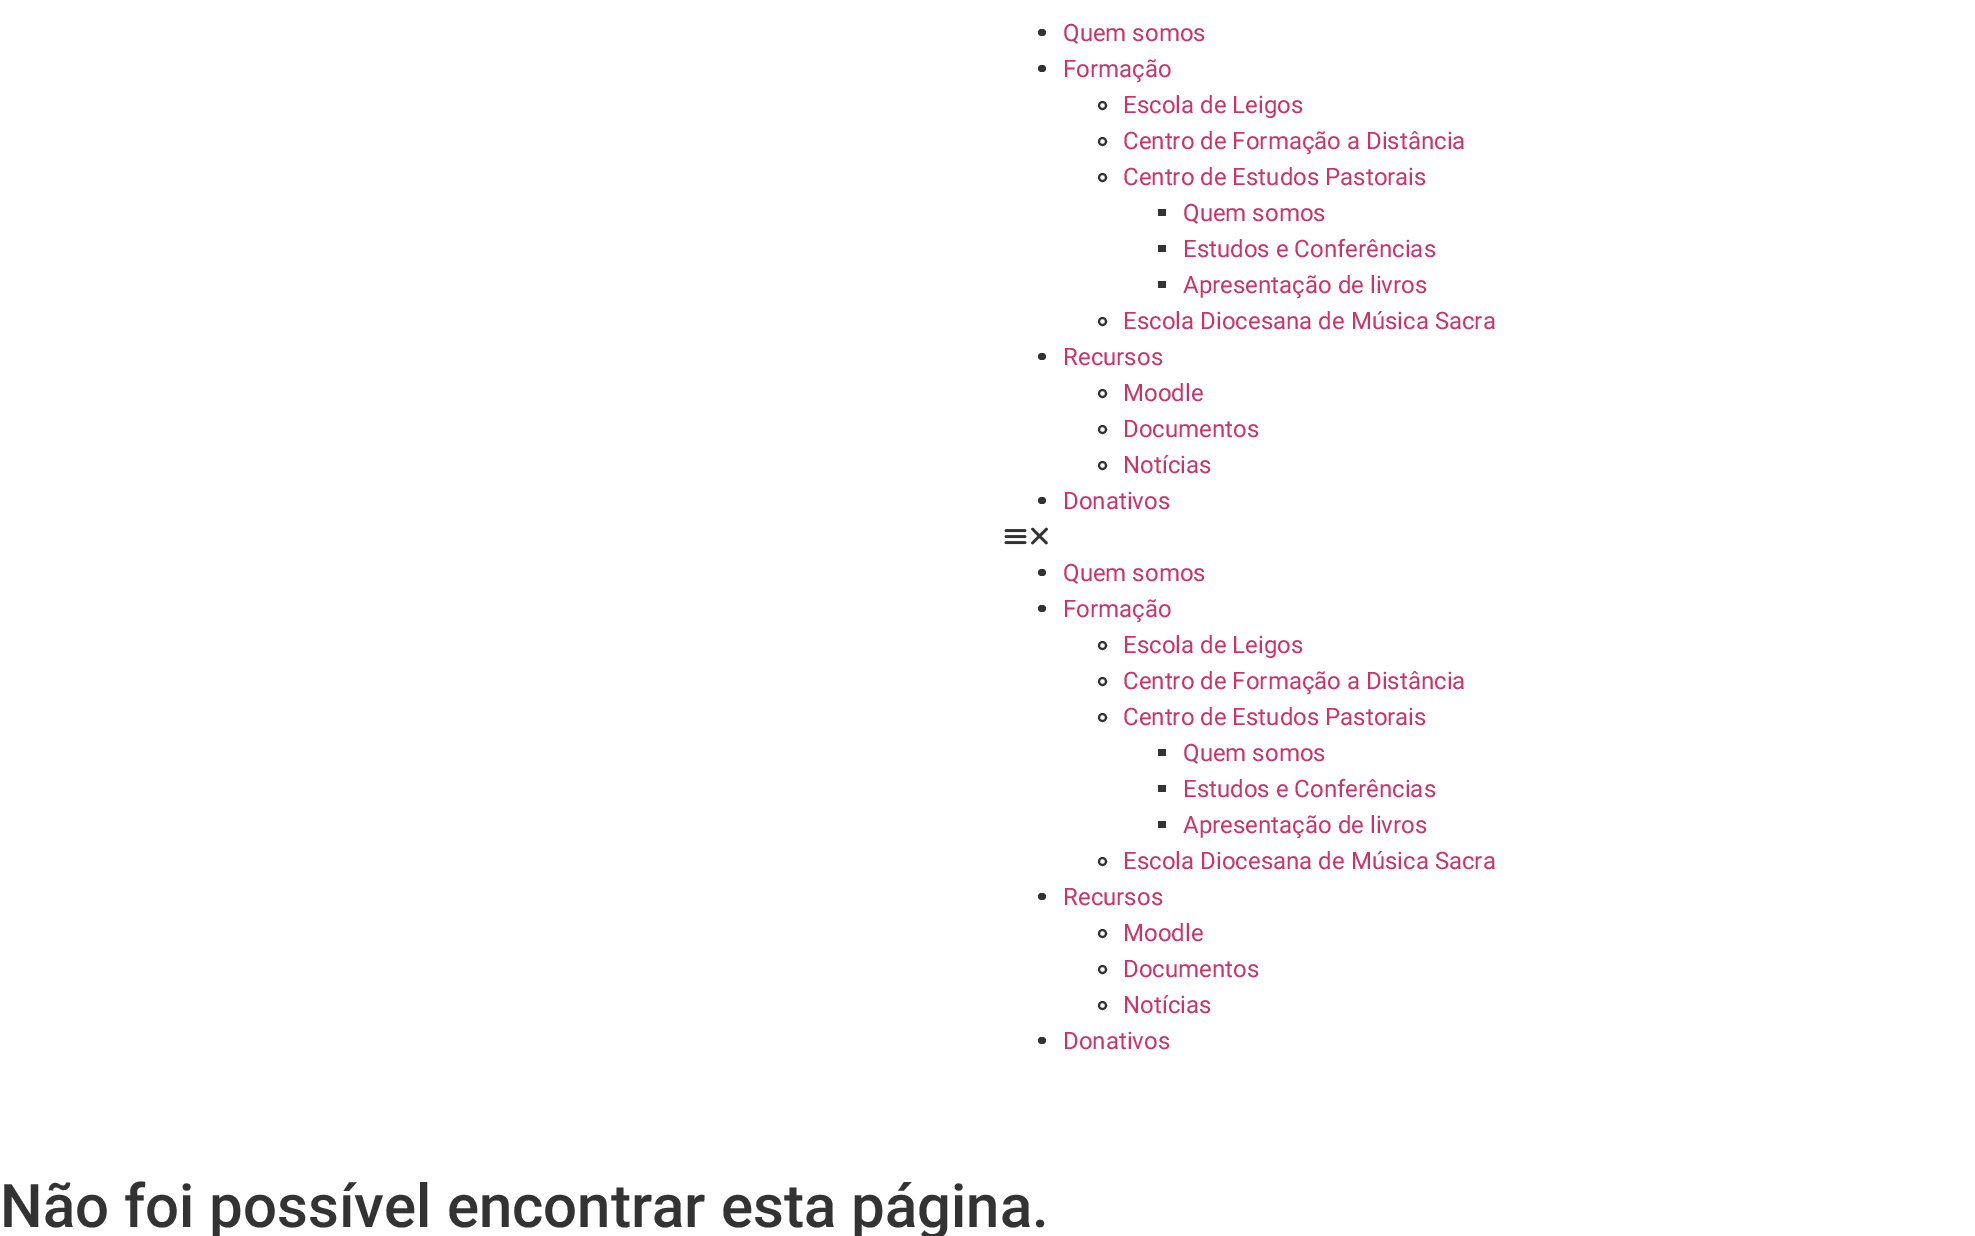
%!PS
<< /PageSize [1975 1236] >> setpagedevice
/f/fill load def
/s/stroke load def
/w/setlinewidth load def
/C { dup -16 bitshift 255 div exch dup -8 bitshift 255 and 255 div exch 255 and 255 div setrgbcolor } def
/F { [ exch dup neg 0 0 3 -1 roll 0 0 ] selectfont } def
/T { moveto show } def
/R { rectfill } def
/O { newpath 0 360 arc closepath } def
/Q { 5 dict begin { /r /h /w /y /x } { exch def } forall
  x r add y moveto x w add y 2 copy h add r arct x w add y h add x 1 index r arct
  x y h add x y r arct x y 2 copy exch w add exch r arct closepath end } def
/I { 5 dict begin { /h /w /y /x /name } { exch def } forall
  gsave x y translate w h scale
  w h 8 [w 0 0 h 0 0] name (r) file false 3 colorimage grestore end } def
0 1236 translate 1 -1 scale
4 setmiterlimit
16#FFFFFF C
0 0 1975 1236 R
16#333333 C
1038 29 8 7 3.5 Q f
/Roboto-Regular 24 F
16#CC3366 C
(Quem somos) 1063 41 T
16#333333 C
1038 65 8 7 3.5 Q f
16#CC3366 C
(Formação) 1063 77 T
16#333333 C
2 w
1102.5 105.5 3.5 O s
16#CC3366 C
(Escola de Leigos) 1123 113 T
16#333333 C
1102.5 141.5 3.5 O s
16#CC3366 C
(Centro de Formação a Distância) 1123 149 T
16#333333 C
1102.5 177.5 3.5 O s
16#CC3366 C
(Centro de Estudos Pastorais) 1123 185 T
16#333333 C
1158 209 8 7 R
16#CC3366 C
(Quem somos) 1183 221 T
16#333333 C
1158 245 8 7 R
16#CC3366 C
(Estudos e Conferências) 1183 257 T
16#333333 C
1158 281 8 7 R
16#CC3366 C
(Apresentação de livros) 1183 293 T
16#333333 C
1102.5 321.5 3.5 O s
16#CC3366 C
(Escola Diocesana de Música Sacra) 1123 329 T
16#333333 C
1038 353 8 7 3.5 Q f
16#CC3366 C
(Recursos) 1063 365 T
16#333333 C
1102.5 393.5 3.5 O s
16#CC3366 C
(Moodle) 1123 401 T
16#333333 C
1102.5 429.5 3.5 O s
16#CC3366 C
(Documentos) 1123 437 T
16#333333 C
1102.5 465.5 3.5 O s
16#CC3366 C
(Notícias) 1123 473 T
16#333333 C
1038 497 8 7 3.5 Q f
16#CC3366 C
(Donativos) 1063 509 T
(1.rgb) 1004 529 23 16 I
(2.rgb) 1031 527 17 18 I
16#333333 C
1038 569 8 7 3.5 Q f
16#CC3366 C
(Quem somos) 1063 581 T
16#333333 C
1038 605 8 7 3.5 Q f
16#CC3366 C
(Formação) 1063 617 T
16#333333 C
1102.5 645.5 3.5 O s
16#CC3366 C
(Escola de Leigos) 1123 653 T
16#333333 C
1102.5 681.5 3.5 O s
16#CC3366 C
(Centro de Formação a Distância) 1123 689 T
16#333333 C
1102.5 717.5 3.5 O s
16#CC3366 C
(Centro de Estudos Pastorais) 1123 725 T
16#333333 C
1158 749 8 7 R
16#CC3366 C
(Quem somos) 1183 761 T
16#333333 C
1158 785 8 7 R
16#CC3366 C
(Estudos e Conferências) 1183 797 T
16#333333 C
1158 821 8 7 R
16#CC3366 C
(Apresentação de livros) 1183 833 T
16#333333 C
1102.5 861.5 3.5 O s
16#CC3366 C
(Escola Diocesana de Música Sacra) 1123 869 T
16#333333 C
1038 893 8 7 3.5 Q f
16#CC3366 C
(Recursos) 1063 905 T
16#333333 C
1102.5 933.5 3.5 O s
16#CC3366 C
(Moodle) 1123 941 T
16#333333 C
1102.5 969.5 3.5 O s
16#CC3366 C
(Documentos) 1123 977 T
16#333333 C
1102.5 1005.5 3.5 O s
16#CC3366 C
(Notícias) 1123 1013 T
16#333333 C
1038 1037 8 7 3.5 Q f
16#CC3366 C
(Donativos) 1063 1049 T
/Roboto-Medium 60 F
16#333333 C
(Não foi possível encontrar esta página.) 0 1227 T
showpage
